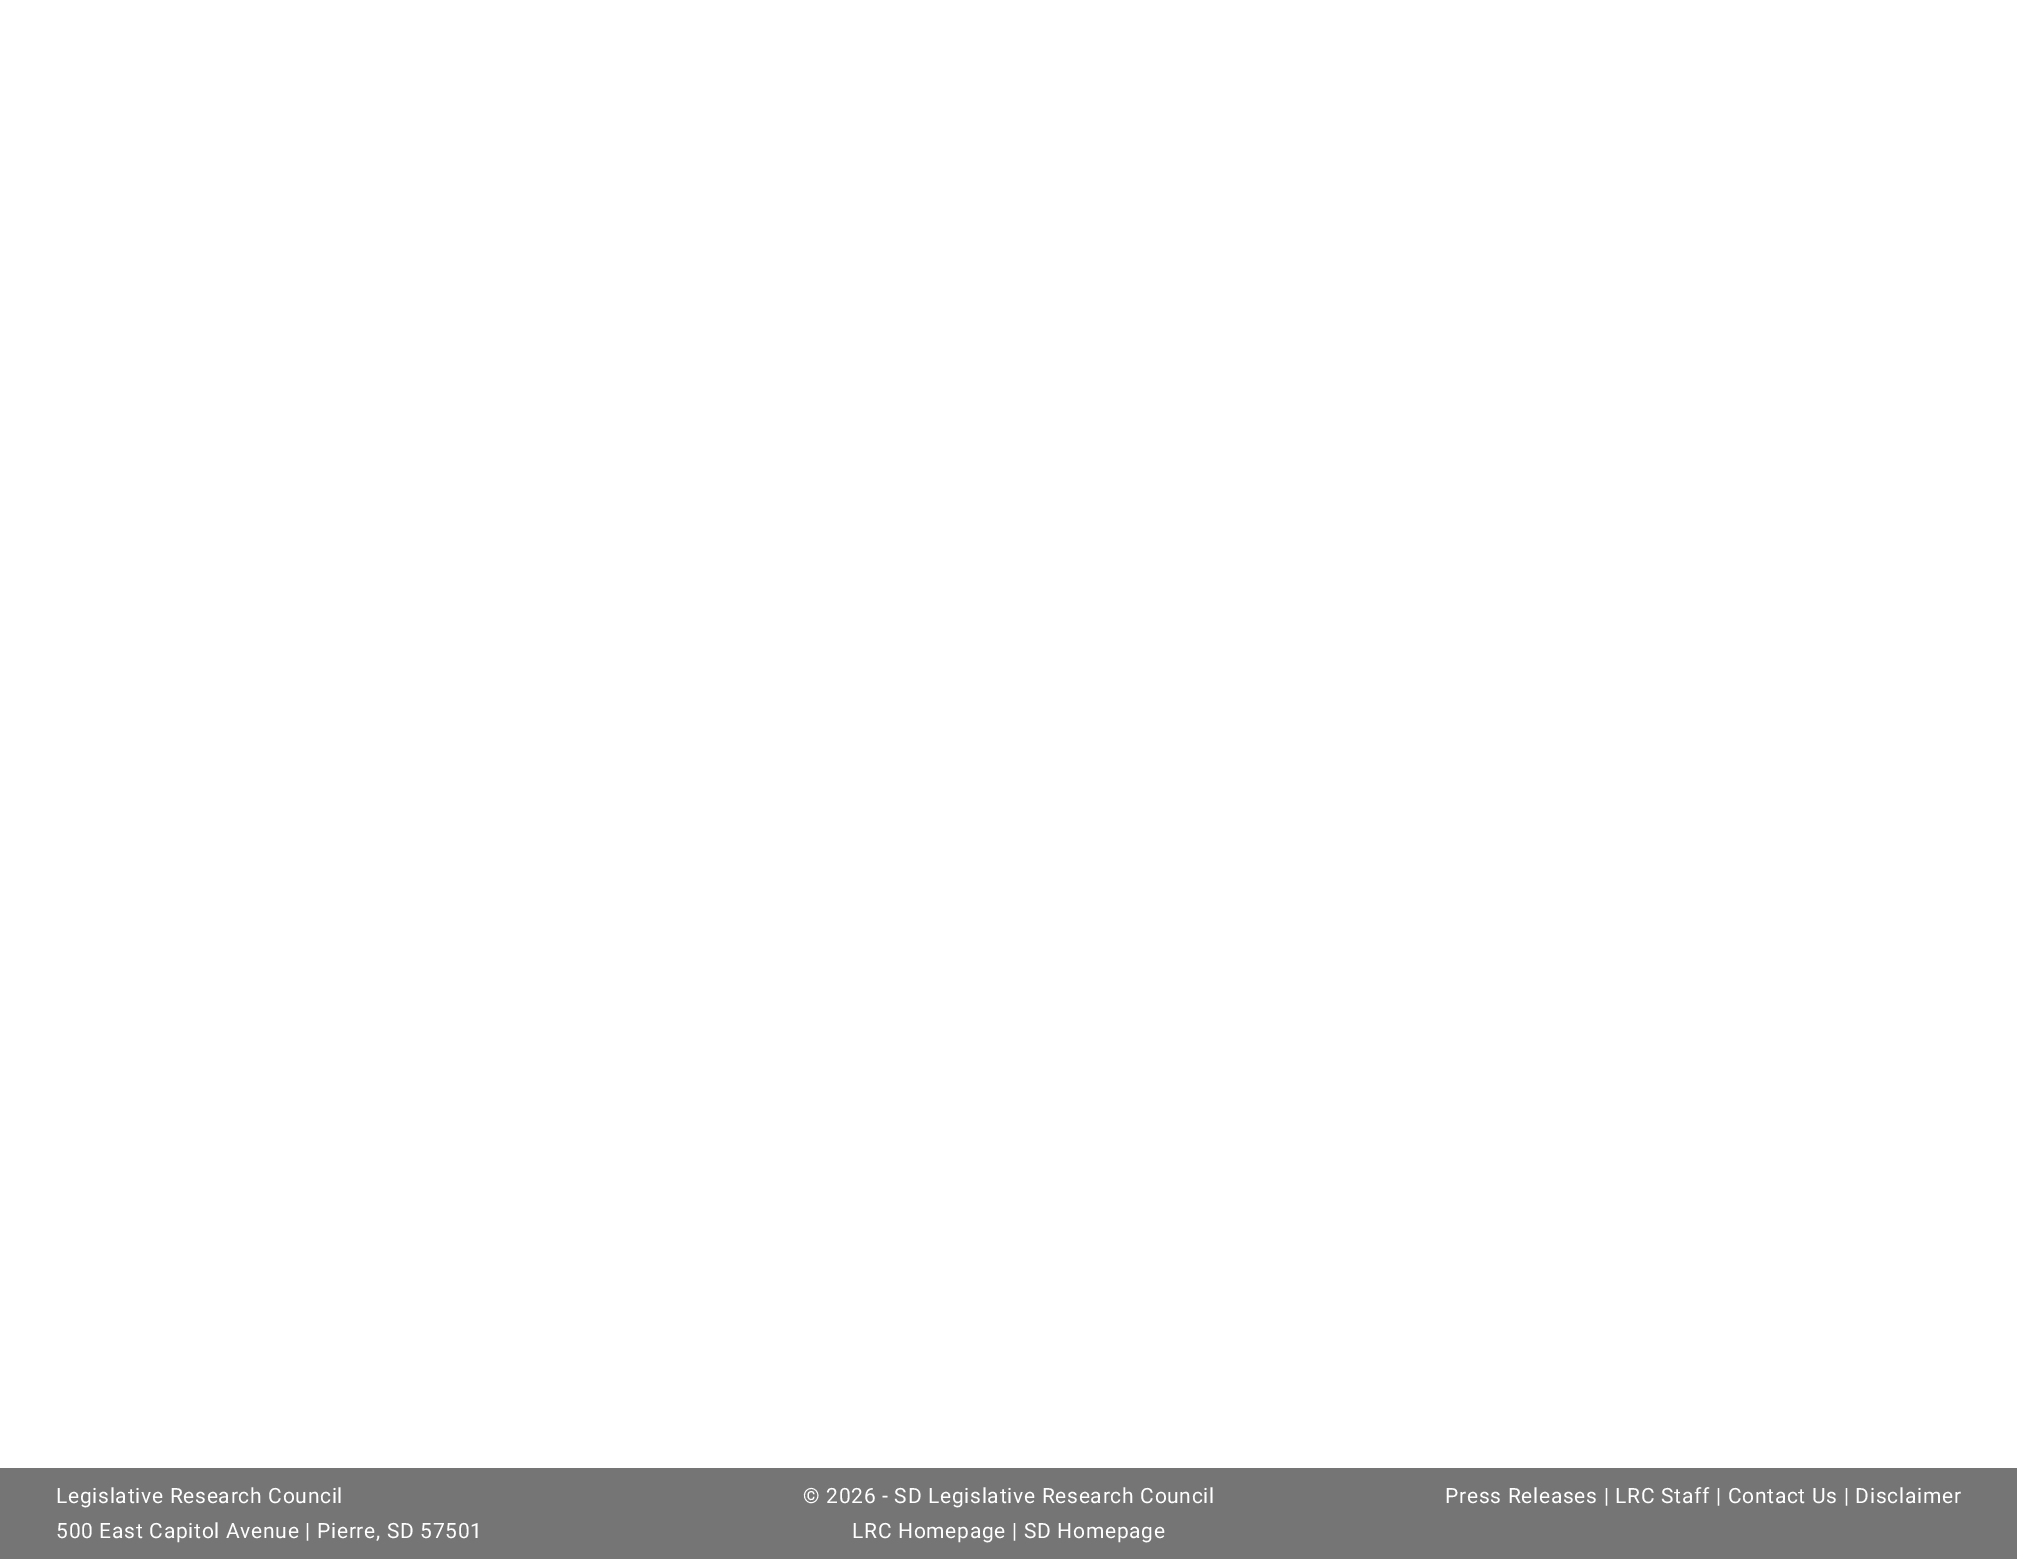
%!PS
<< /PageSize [2017 1559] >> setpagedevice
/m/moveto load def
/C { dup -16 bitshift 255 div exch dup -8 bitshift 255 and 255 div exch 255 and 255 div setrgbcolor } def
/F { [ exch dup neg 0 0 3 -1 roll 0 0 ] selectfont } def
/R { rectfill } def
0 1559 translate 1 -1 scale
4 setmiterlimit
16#FFFFFF C
0 0 2017 1559 R
16#757575 C
0 1468 2017 91 R
/Roboto-Regular 21 F
16#FFFFFF C
56 1503 m .7 0 (Legislative Research Council) ashow
56 1538 m .7 0 (500 East Capitol Avenue | Pierre, SD 57501) ashow
803 1503 m .7 0 (© 2026 - SD Legislative Research Council) ashow
852 1538 m .7 0 (LRC Homepage | SD Homepage) ashow
1445 1503 m .7 0 (Press Releases | LRC Staff | Contact Us | Disclaimer) ashow
showpage
